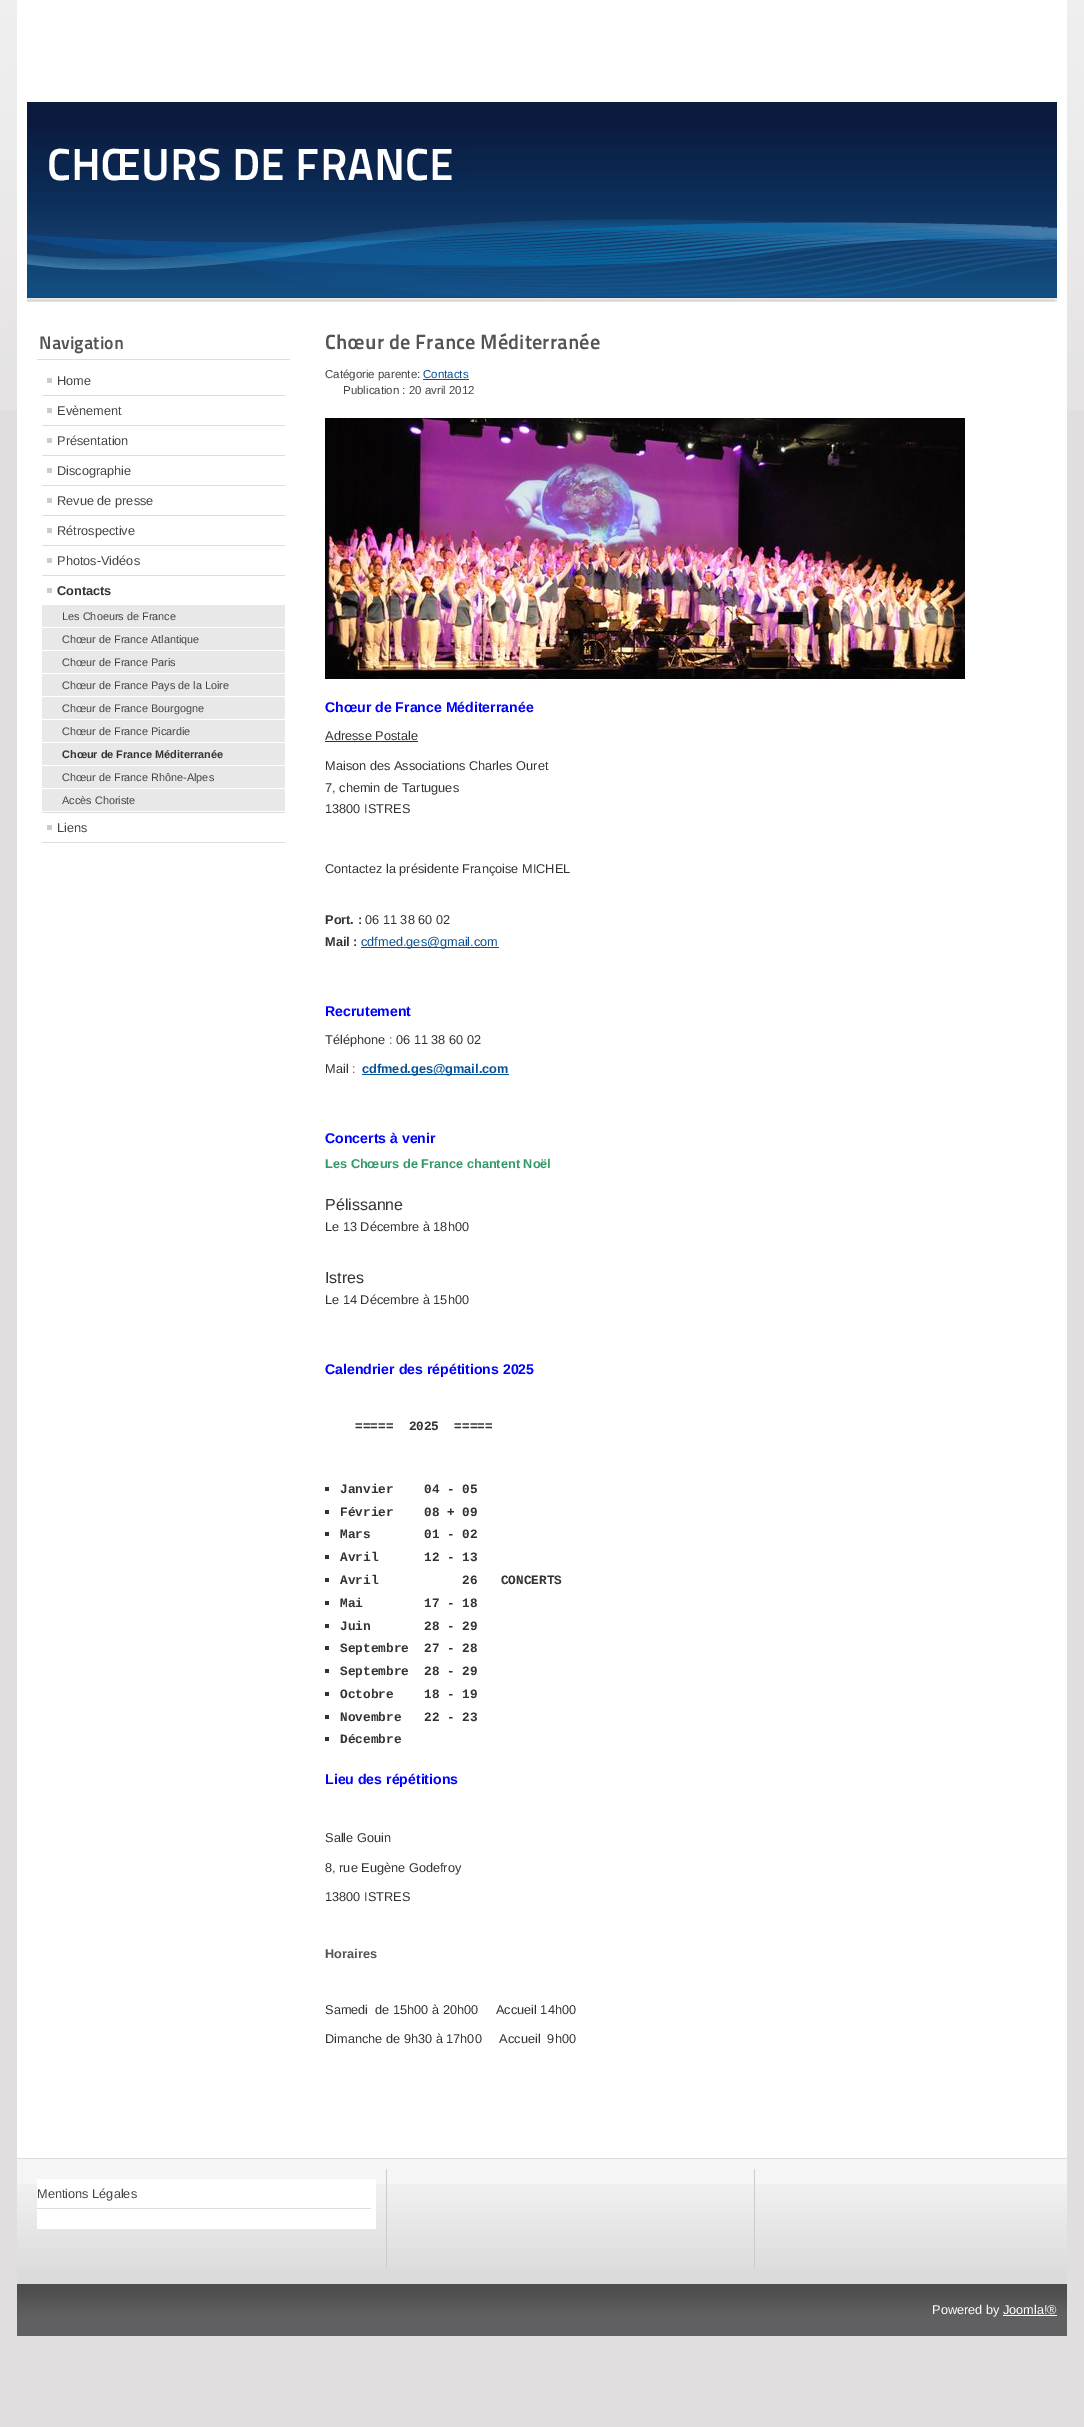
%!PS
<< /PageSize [1084 2427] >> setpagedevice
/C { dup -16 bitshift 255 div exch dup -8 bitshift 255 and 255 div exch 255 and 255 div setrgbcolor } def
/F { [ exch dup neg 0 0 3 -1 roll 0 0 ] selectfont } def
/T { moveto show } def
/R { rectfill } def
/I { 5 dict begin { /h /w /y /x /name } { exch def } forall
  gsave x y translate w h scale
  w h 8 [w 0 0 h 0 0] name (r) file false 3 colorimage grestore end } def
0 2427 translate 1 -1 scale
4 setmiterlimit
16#E0DEDF C
0 0 1084 2427 R
(1.rgb) 0 0 1084 411 I
16#FFFFFF C
17 0 1050 2158 R
16#0C1A3E C
27 102 1030 27 R
(2.rgb) 27 129 1030 173 I
/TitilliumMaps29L-ExtraBold 44.75 F
16#FFFFFF C
(CHŒURS DE FRANCE) 47 180 T
16#DDDDDD C
37 359 253 1 R
/TitilliumMaps29L-ExtraBold 18 F
16#555555 C
(Navigation) 39 349 T
16#DDDDDD C
42 395 243 1 R
16#CCCCCC C
47 378 5 5 R
/LiberationSans-Regular 12.75 F
16#444444 C
(Home) 57 385 T
16#DDDDDD C
42 425 243 1 R
16#CCCCCC C
47 408 5 5 R
16#444444 C
(Evènement) 57 415 T
16#DDDDDD C
42 455 243 1 R
16#CCCCCC C
47 438 5 5 R
16#444444 C
(Présentation) 57 445 T
16#DDDDDD C
42 485 243 1 R
16#CCCCCC C
47 468 5 5 R
16#444444 C
(Discographie) 57 475 T
16#DDDDDD C
42 515 243 1 R
16#CCCCCC C
47 498 5 5 R
16#444444 C
(Revue de presse) 57 505 T
16#DDDDDD C
42 545 243 1 R
16#CCCCCC C
47 528 5 5 R
16#444444 C
(Rétrospective) 57 535 T
16#DDDDDD C
42 575 243 1 R
16#CCCCCC C
47 558 5 5 R
16#444444 C
(Photos-Vidéos) 57 565 T
16#DDDDDD C
42 812 243 1 R
16#CCCCCC C
47 588 5 5 R
/LiberationSans-Bold 12.75 F
16#333333 C
(Contacts) 57 595 T
16#E8E8E8 C
42 605 243 22 R
/LiberationSans-Regular 10.9 F
16#444444 C
(Les Choeurs de France) 62 620 T
16#E8E8E8 C
42 628 243 22 R
16#444444 C
(Chœur de France Atlantique) 62 643 T
16#E8E8E8 C
42 651 243 22 R
16#444444 C
(Chœur de France Paris) 62 666 T
16#E8E8E8 C
42 674 243 22 R
16#444444 C
(Chœur de France Pays de la Loire) 62 689 T
16#E8E8E8 C
42 697 243 22 R
16#444444 C
(Chœur de France Bourgogne) 62 712 T
16#E8E8E8 C
42 720 243 22 R
16#444444 C
(Chœur de France Picardie) 62 735 T
16#E8E8E8 C
42 743 243 22 R
/LiberationSans-Bold 10.9 F
16#333333 C
(Chœur de France Méditerranée) 62 758 T
16#E8E8E8 C
42 766 243 22 R
/LiberationSans-Regular 10.9 F
16#444444 C
(Chœur de France Rhône-Alpes) 62 781 T
16#E8E8E8 C
42 789 243 22 R
16#444444 C
(Accès Choriste) 62 804 T
16#DDDDDD C
42 842 243 1 R
16#CCCCCC C
47 825 5 5 R
/LiberationSans-Regular 12.75 F
16#444444 C
(Liens) 57 832 T
/TitilliumMaps29L-ExtraBold 20.5 F
16#555555 C
(Chœur de France Méditerranée) 325 349 T
/LiberationSans-Regular 11.5 F
16#444444 C
(Catégorie parente:) 325 378 T
16#095197 C
(Contacts) 423 378 T
423 379 46 1 R
16#444444 C
(Publication : 20 avril 2012) 343 394 T
(3.rgb) 325 418 640 261 I
/LiberationSans-Bold 14.1 F
16#0000FF C
(Chœur de France Méditerranée) 325 712 T
/LiberationSans-Regular 12.75 F
16#333333 C
(Adresse Postale) 325 740 T
325 741 93 1 R
(Maison des Associations Charles Ouret) 325 770 T
(7, chemin de Tartugues) 325 792 T
(13800 ISTRES) 325 813 T
(Contactez la présidente Françoise MICHEL) 325 873 T
/LiberationSans-Bold 12.75 F
(Port. :) 325 924 T
/LiberationSans-Regular 12.75 F
(06 11 38 60 02) 365 924 T
/LiberationSans-Bold 12.75 F
(Mail :) 325 946 T
16#095197 C
361 947 138 1 R
/LiberationSans-Regular 12.75 F
(cdfmed.ges@gmail.com) 361 946 T
/LiberationSans-Bold 14.1 F
16#0000FF C
(Recrutement) 325 1016 T
/LiberationSans-Regular 12.75 F
16#333333 C
(Téléphone : 06 11 38 60 02) 325 1044 T
(Mail :) 325 1073 T
16#095197 C
362 1074 147 1 R
/LiberationSans-Bold 12.75 F
(cdfmed.ges@gmail.com) 362 1073 T
/LiberationSans-Bold 14.1 F
16#0000FF C
(Concerts à venir) 325 1143 T
/LiberationSans-Bold 12.75 F
16#339966 C
(Les Chœurs de France chantent Noël) 325 1168 T
/LiberationSans-Regular 16 F
16#333333 C
(Pélissanne) 325 1210 T
/LiberationSans-Regular 12.75 F
(Le 13 Décembre à 18h00) 325 1231 T
/LiberationSans-Regular 16 F
(Istres) 325 1283 T
/LiberationSans-Regular 12.75 F
(Le 14 Décembre à 15h00) 325 1304 T
/LiberationSans-Bold 14.1 F
16#0000FF C
(Calendrier des répétitions 2025) 325 1374 T
/LiberationMono-Bold 12.75 F
16#333333 C
(=====  2025  =====) 355 1430 T
325 1487 4 4 R
(Janvier    04 - 05) 340 1493 T
325 1510 4 4 R
(Février    08 + 09) 340 1516 T
325 1532 4 4 R
(Mars       01 - 02) 340 1538 T
325 1555 4 4 R
(Avril      12 - 13) 340 1561 T
325 1578 4 4 R
(Avril           26   CONCERTS) 340 1584 T
325 1601 4 4 R
(Mai        17 - 18) 340 1607 T
325 1624 4 4 R
(Juin       28 - 29) 340 1630 T
325 1646 4 4 R
(Septembre  27 - 28) 340 1652 T
325 1669 4 4 R
(Septembre  28 - 29) 340 1675 T
325 1692 4 4 R
(Octobre    18 - 19) 340 1698 T
325 1715 4 4 R
(Novembre   22 - 23) 340 1721 T
325 1737 4 4 R
(Décembre) 340 1743 T
/LiberationSans-Bold 14.1 F
16#0000FF C
(Lieu des répétitions) 325 1784 T
/LiberationSans-Regular 12.75 F
16#333333 C
(Salle Gouin) 325 1842 T
(8, rue Eugène Godefroy) 325 1872 T
(13800 ISTRES) 325 1901 T
/LiberationSans-Bold 12.75 F
16#555555 C
(Horaires) 325 1958 T
/LiberationSans-Regular 12.75 F
16#333333 C
(Samedi  de 15h00 à 20h00     Accueil 14h00) 325 2014 T
(Dimanche de 9h30 à 17h00     Accueil  9h00) 325 2043 T
16#F5F5F5 C
17 2159 1050 25 R
(4.rgb) 17 2184 1050 100 I
16#DDDDDD C
17 2158 1050 1 R
16#CCCCCC C
386 2169 1 100 R
16#FFFFFF C
37 2179 339 50 R
16#DDDDDD C
37 2208 334 1 R
16#444444 C
(Mentions Légales) 37 2198 T
16#CCCCCC C
754 2169 1 100 R
(5.rgb) 17 2284 1050 52 I
16#FFFFFF C
(Powered by Joomla!®) 932 2314 T
1003 2315 54 1 R
showpage
